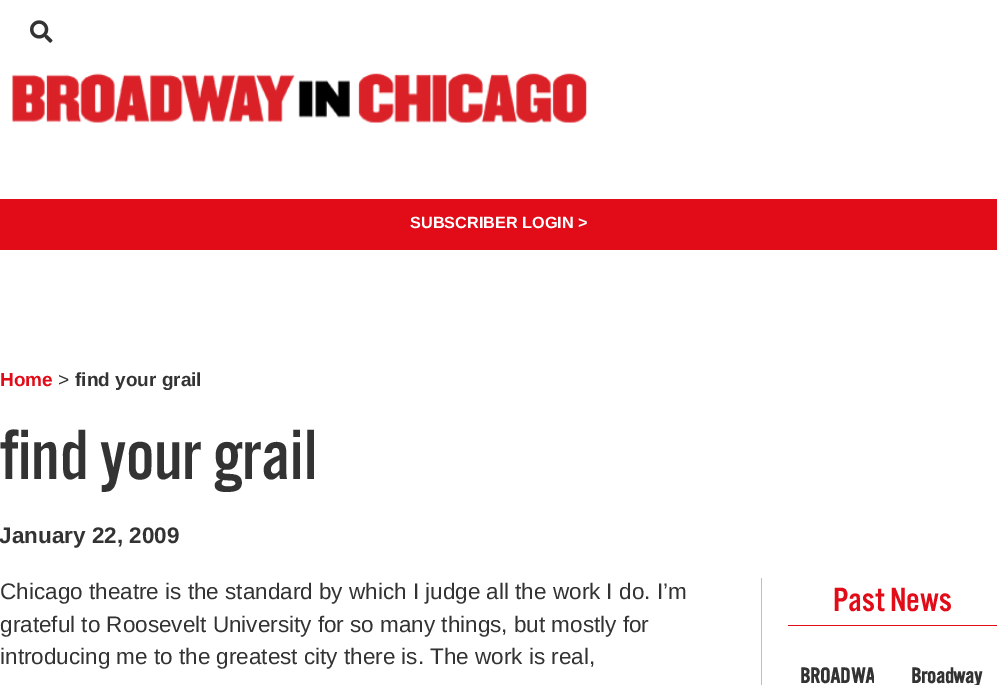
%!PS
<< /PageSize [997 685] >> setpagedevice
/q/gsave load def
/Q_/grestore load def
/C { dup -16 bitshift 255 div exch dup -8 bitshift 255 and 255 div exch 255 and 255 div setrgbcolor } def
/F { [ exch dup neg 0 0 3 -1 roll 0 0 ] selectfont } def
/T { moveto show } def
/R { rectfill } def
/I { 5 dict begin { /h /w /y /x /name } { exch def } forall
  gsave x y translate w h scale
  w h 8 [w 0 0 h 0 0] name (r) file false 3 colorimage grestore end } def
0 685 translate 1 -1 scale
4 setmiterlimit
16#FFFFFF C
0 0 997 685 R
(1.rgb) 30 20 23 23 I
(2.rgb) 12 73 575 50 I
16#E20B18 C
0 199 997 51 R
/LiberationSans-Bold 16.25 F
16#FFFFFF C
(SUBSCRIBER LOGIN >) 410 228 T
/LiberationSans-Bold 19 F
16#E20B18 C
(Home) 0 386 T
/LiberationSans-Regular 19 F
16#333333 C
(>) 58 386 T
/LiberationSans-Bold 19 F
(find your grail) 75 386 T
/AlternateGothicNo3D-Regular 73.75 F
(find your grail) 0 479 T
/LiberationSans-Bold 22.5 F
(January 22, 2009) -1 543 T
16#BFBFBF C
761 578 1 107 R
/LiberationSans-Regular 22.5 F
16#333333 C
(Chicago theatre is the standard by which I judge all the work I do. I’m) 0 599 T
(grateful to Roosevelt University for so many things, but mostly for) 0 632 T
(introducing me to the greatest city there is. The work is real,) 0 664 T
16#E20B18 C
788 625 209 1 R
/AlternateGothicNo3D-Regular 35 F
(Past News) 833 611 T
q
800 664 74 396 rectclip
/AlternateGothicNo3D-Bold 22.5 F
16#333333 C
(BROADWA) 800 683 T
Q_
/AlternateGothicNo3D-Bold 22.5 F
16#333333 C
(Broadway) 911 683 T
showpage
